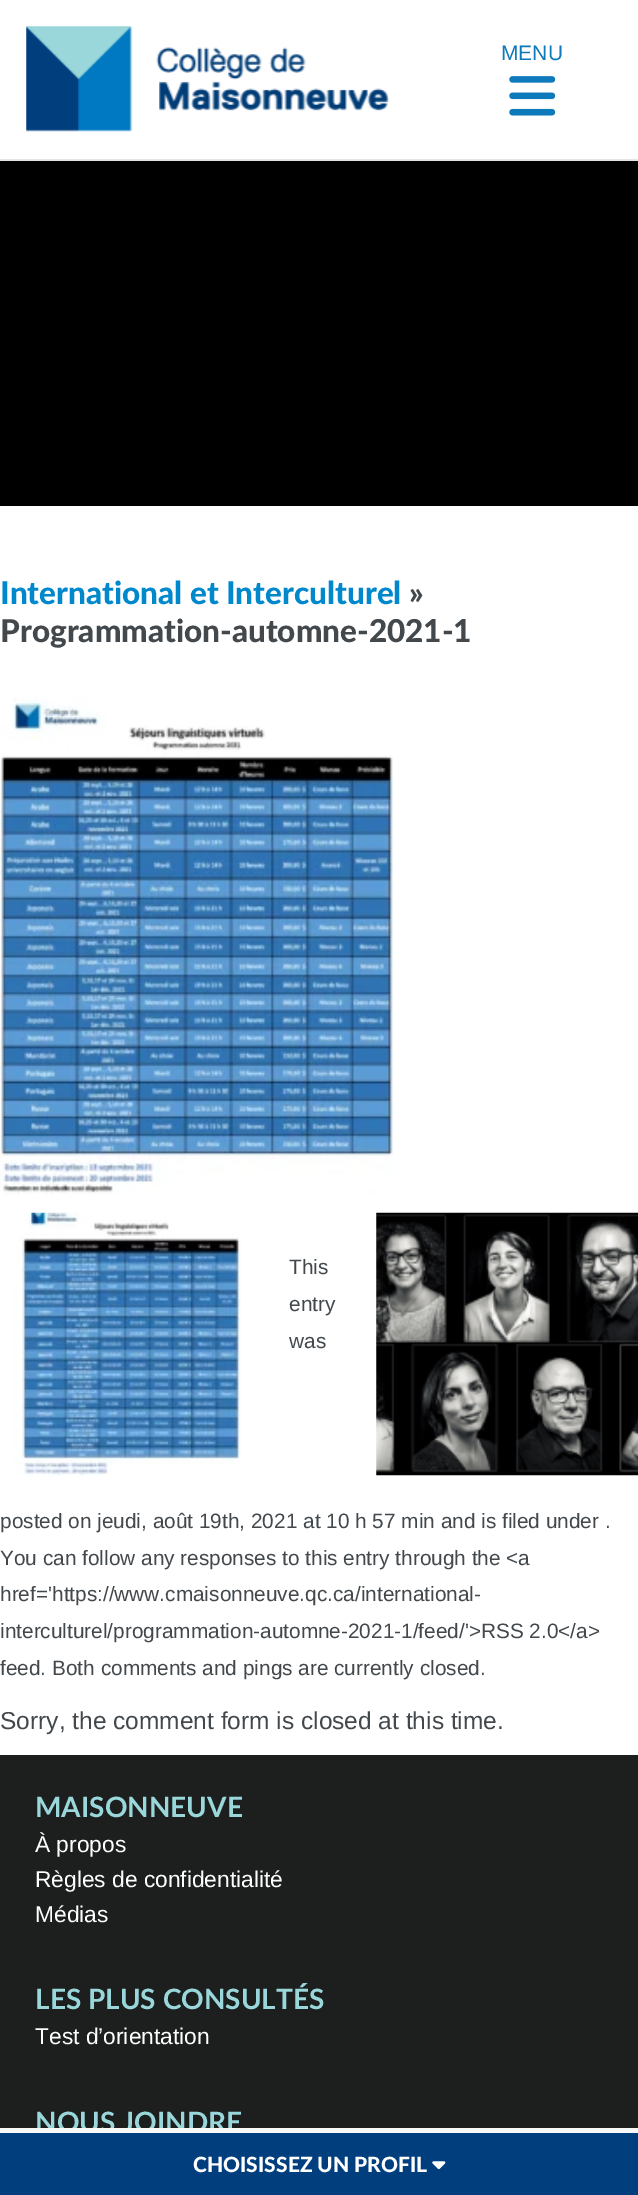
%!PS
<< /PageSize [638 2195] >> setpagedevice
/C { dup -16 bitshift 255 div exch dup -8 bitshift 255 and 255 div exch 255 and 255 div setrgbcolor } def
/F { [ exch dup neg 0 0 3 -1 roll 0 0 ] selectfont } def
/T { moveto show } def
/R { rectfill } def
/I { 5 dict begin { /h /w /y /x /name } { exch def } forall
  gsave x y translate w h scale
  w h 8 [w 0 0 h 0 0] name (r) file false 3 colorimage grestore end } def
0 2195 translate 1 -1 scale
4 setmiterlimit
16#FFFFFF C
0 0 638 2195 R
(1.rgb) 26 26 363 106 I
16#E5E5E5 C
0 159 638 2 R
/LiberationSans-Regular 21 F
16#0F7ABB C
(MENU) 501 60 T
(2.rgb) 509 76 47 40 I
16#000000 C
0 161 638 345 R
/Lato-Black 31.5 F
16#0088CC C
(International et Interculturel) 0 604 T
16#42484C C
(») 409 604 T
(Programmation-automne-2021-1) 0 642 T
(3.rgb) 0 698 394 497 I
(4.rgb) 14 1212 227 264 I
(5.rgb) 376 1212 262 264 I
/LiberationSans-Regular 20.8 F
(This) 289 1274 T
(entry) 289 1311 T
(was) 289 1348 T
(posted on jeudi, août 19th, 2021 at 10 h 57 min and is filed under .) 0 1528 T
(You can follow any responses to this entry through the <a) 0 1565 T
(href='https://www.cmaisonneuve.qc.ca/international-) 0 1601 T
(interculturel/programmation-automne-2021-1/feed/'>RSS 2.0</a>) 0 1638 T
(feed. Both comments and pings are currently closed.) 0 1675 T
/LiberationSans-Regular 24.5 F
(Sorry, the comment form is closed at this time.) 0 1729 T
16#1D1E1E C
0 1755 638 373 R
/Lato-Bold 28 F
16#99D7DB C
(MAISONNEUVE) 35 1817 T
/LiberationSans-Regular 22.75 F
16#FFFFFF C
(À propos) 35 1852 T
(Règles de confidentialité) 35 1887 T
(Médias) 35 1922 T
/Lato-Bold 28 F
16#99D7DB C
(LES PLUS CONSULTÉS) 35 2009 T
/LiberationSans-Regular 22.75 F
16#FFFFFF C
(Test d’orientation) 35 2044 T
/Lato-Bold 28 F
16#99D7DB C
(NOUS JOINDRE) 35 2132 T
16#F8F8F8 C
0 2128 638 5 R
16#003E7E C
0 2133 638 62 R
/Lato-Black 21 F
16#FFFFFF C
(CHOISISSEZ UN PROFIL) 193 2172 T
(6.rgb) 432 2161 14 9 I
showpage
